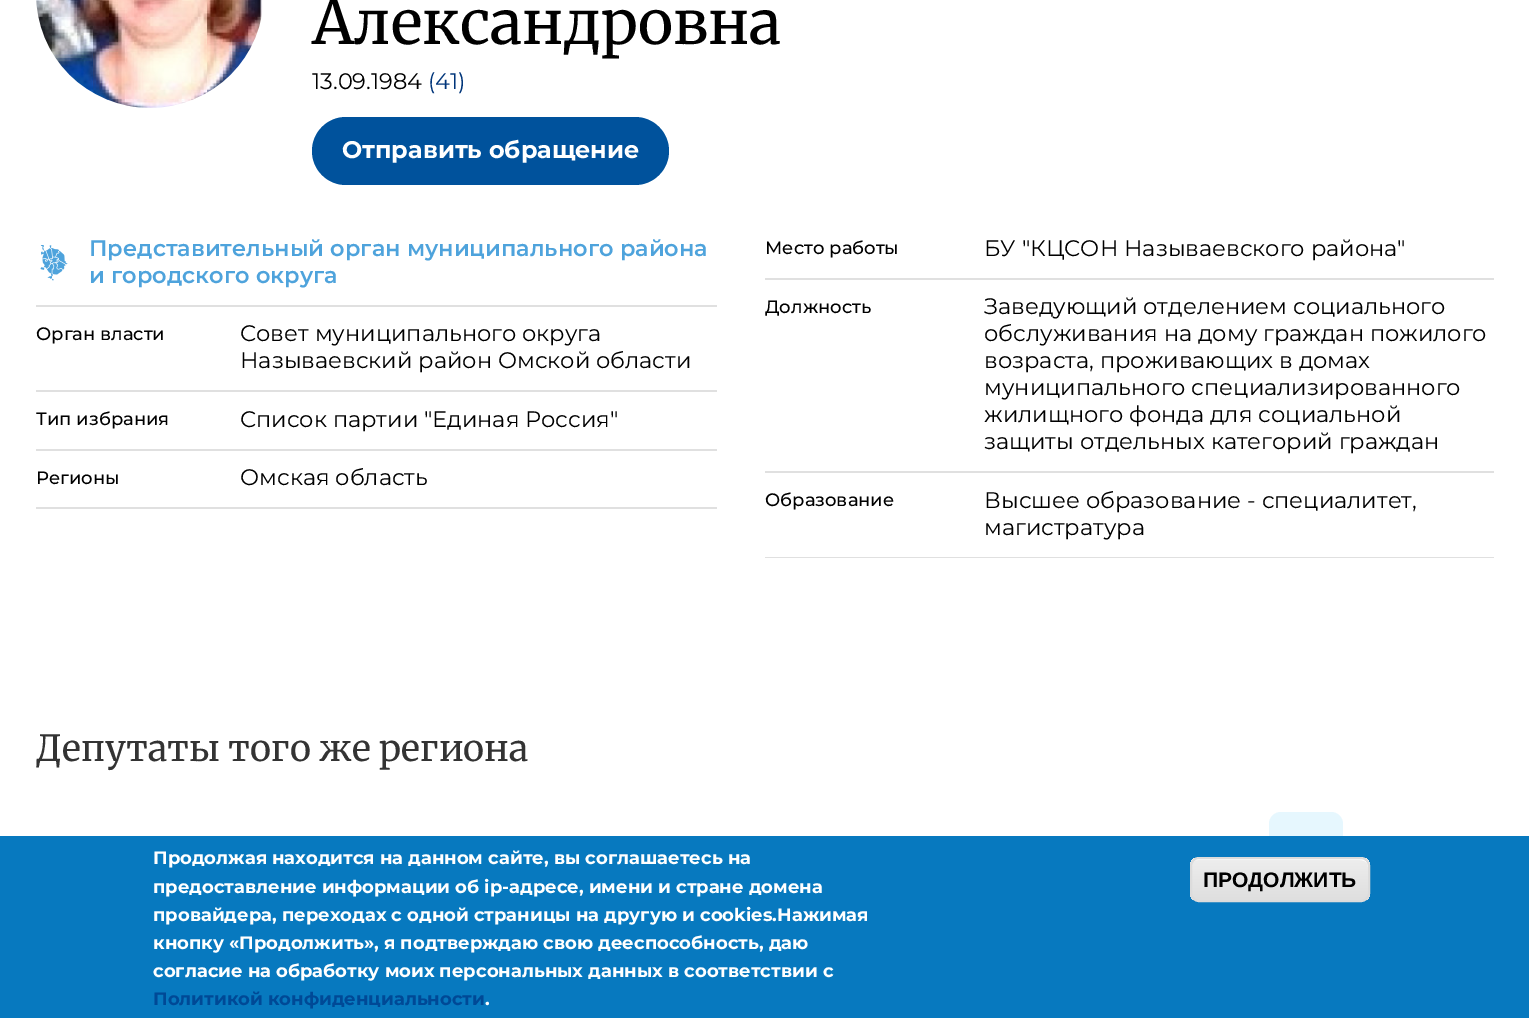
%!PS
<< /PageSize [1529 1018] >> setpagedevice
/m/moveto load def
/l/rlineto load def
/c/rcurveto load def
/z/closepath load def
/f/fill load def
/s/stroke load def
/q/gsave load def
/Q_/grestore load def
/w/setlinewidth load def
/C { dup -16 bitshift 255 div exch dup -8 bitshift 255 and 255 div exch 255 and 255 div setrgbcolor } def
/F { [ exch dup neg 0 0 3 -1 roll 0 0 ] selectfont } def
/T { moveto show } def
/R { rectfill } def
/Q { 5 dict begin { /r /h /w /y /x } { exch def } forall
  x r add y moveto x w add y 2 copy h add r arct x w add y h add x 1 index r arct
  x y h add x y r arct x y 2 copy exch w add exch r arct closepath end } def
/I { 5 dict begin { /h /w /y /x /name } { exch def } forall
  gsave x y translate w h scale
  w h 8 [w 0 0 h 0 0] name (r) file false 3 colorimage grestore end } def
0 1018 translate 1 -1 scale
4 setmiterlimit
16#FFFFFF C
0 0 1529 1018 R
(1.rgb) 36 0 227 108 I
/Merriweather-Regular 60 F
16#000000 C
(Александровна) 312 44 T
/Montserrat-Regular 22.5 F
(13.09.1984) 312 89 T
16#00357A C
(\(41\)) 428 89 T
16#00529C C
312 117 357 68 34 Q f
/Montserrat-Bold 24 F
16#FFFFFF C
(Отправить обращение) 342 158 T
16#E0E0E0 C
36 305 681 2 R
(2.rgb) 40 245 28 36 I
/Montserrat-SemiBold 22.5 F
16#4EA3DC C
(Представительный орган муниципального района) 89 256 T
(и городского округа) 89 283 T
16#E0E0E0 C
36 390 681 2 R
/Montserrat-Medium 18 F
16#000000 C
(Орган власти) 36 340 T
/Montserrat-Regular 22.5 F
(Совет муниципального округа) 240 341 T
(Называевский район Омской области) 240 368 T
16#E0E0E0 C
36 449 681 2 R
/Montserrat-Medium 18 F
16#000000 C
(Тип избрания) 36 425 T
/Montserrat-Regular 22.5 F
(Список партии "Единая Россия") 240 427 T
16#E0E0E0 C
36 507 681 2 R
/Montserrat-Medium 18 F
16#000000 C
(Регионы) 36 484 T
/Montserrat-Regular 22.5 F
(Омская область) 240 485 T
16#E0E0E0 C
765 278 729 2 R
/Montserrat-Medium 18 F
16#000000 C
(Место работы) 765 254 T
/Montserrat-Regular 22.5 F
(БУ "КЦСОН Называевского района") 984 256 T
16#E0E0E0 C
765 471 729 2 R
/Montserrat-Medium 18 F
16#000000 C
(Должность) 765 313 T
/Montserrat-Regular 22.5 F
(Заведующий отделением социального) 984 314 T
(обслуживания на дому граждан пожилого) 984 341 T
(возраста, проживающих в домах) 984 368 T
(муниципального специализированного) 984 395 T
(жилищного фонда для социальной) 984 422 T
(защиты отдельных категорий граждан) 984 449 T
16#E0E0E0 C
765 557 729 1 R
/Montserrat-Medium 18 F
16#000000 C
(Образование) 765 506 T
/Montserrat-Regular 22.5 F
(Высшее образование - специалитет,) 984 508 T
(магистратура) 984 535 T
/Merriweather-Regular 36 F
16#333333 C
(Депутаты того же региона) 36 761 T
16#E6F7FE C
1269 812 74 58 12 Q f
16#0779BF C
0 836 1529 182 R
/Montserrat-Bold 18 F
16#FFFFFF C
(Продолжая находится на данном сайте, вы соглашаетесь на) 153 864 T
(предоставление информации об ip-адресе, имени и стране домена) 153 893 T
(провайдера, переходах с одной страницы на другую и cookies.Нажимая) 153 921 T
(кнопку «Продолжить», я подтверждаю свою дееспособность, даю) 153 949 T
(согласие на обработку моих персональных данных в соответствии с) 153 977 T
16#004996 C
(Политикой конфиденциальности) 153 1005 T
16#FFFFFF C
(.) 485 1005 T
q
1190 857 180 45 9 Q clip newpath
q 1190 858 m 180 0 l 0 42 l -180 0 l z clip newpath
<< /ShadingType 2 /ColorSpace /DeviceRGB /Coords [1280 858 1280 900] /Extend [true true] /Function << /FunctionType 3 /Domain [0 1] /Functions [<< /FunctionType 2 /Domain [0 1] /C0 [.929 .929 .929] /C1 [.929 .929 .929] /N 1 >> << /FunctionType 2 /Domain [0 1] /C0 [.929 .929 .929] /C1 [.875 .875 .875] /N 1 >>] /Bounds [.05] /Encode [0 1 0 1] >> >> shfill Q_
Q_
1198 860 m 162 0 l 5 0 8 3 8 7 c 0 -1 l 0 -4 -4 -8 -8 -8 c -161 0 l -4 0 -8 4 -8 8 c 0 1 l 0 -4 3 -7 7 -7 c z f
16#DCDCDC C
2 w
1191 858 178 43 8 Q s
/LiberationSans-Bold 21 F
16#000000 C
(ПРОДОЛЖИТЬ) 1203 887 T
showpage
